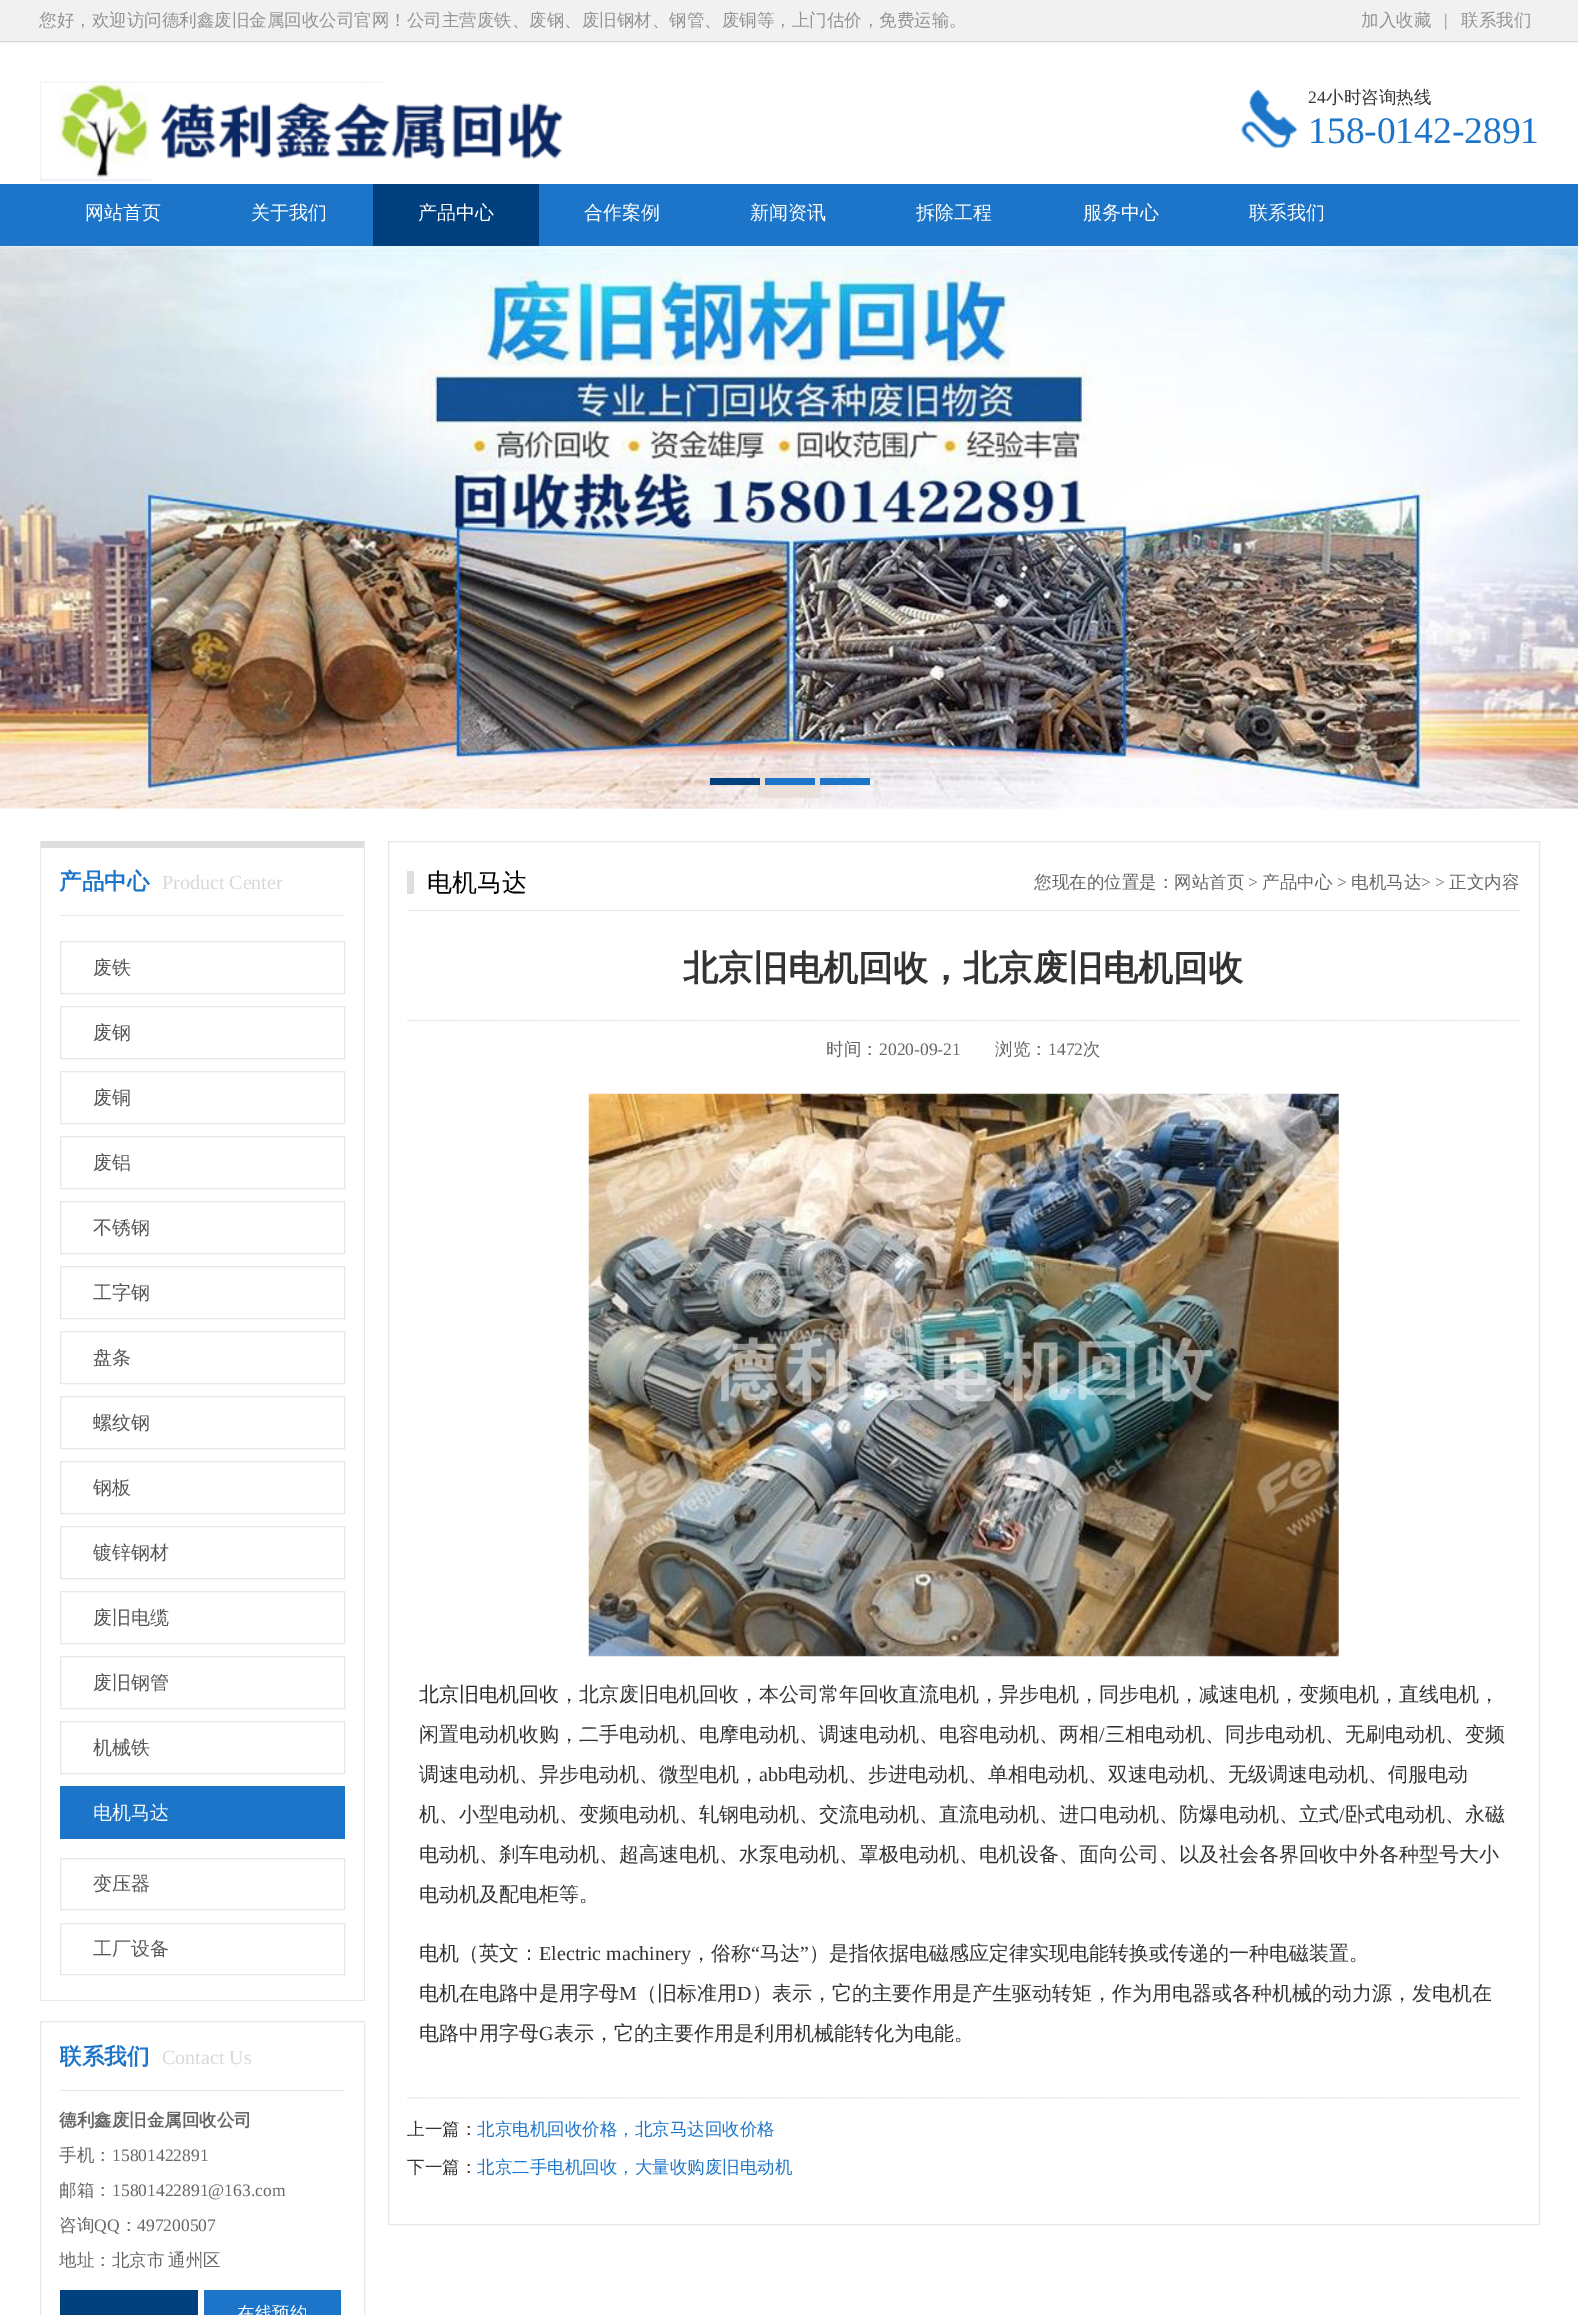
%!PS
<< /PageSize [1578 2315] >> setpagedevice
/m/moveto load def
/l/rlineto load def
/z/closepath load def
/f/fill load def
/s/stroke load def
/q/gsave load def
/Q_/grestore load def
/w/setlinewidth load def
/C { dup -16 bitshift 255 div exch dup -8 bitshift 255 and 255 div exch 255 and 255 div setrgbcolor } def
/F { [ exch dup neg 0 0 3 -1 roll 0 0 ] selectfont } def
/T { moveto show } def
/R { rectfill } def
/I { 5 dict begin { /h /w /y /x /name } { exch def } forall
  gsave x y translate w h scale
  w h 8 [w 0 0 h 0 0] name (r) file false 3 colorimage grestore end } def
0 2315 translate 1 -1 scale
4 setmiterlimit
16#FFFFFF C
0 0 1578 2315 R
16#F1F1F1 C
0 0 1578 43 R
16#D8D8D8 C
0 41 1578 1 R
/WenQuanYiZenHei-Medium 17.5 F
16#939393 C
(您好，欢迎访问德利鑫废旧金属回收公司官网！公司主营废铁、废钢、废旧钢材、钢管、废铜等，上门估价，免费运输。) 39 26 T
(加入收藏) 1361 26 T
/LiberationSerif-Regular 17.5 F
(|) 1444 26 T
/WenQuanYiZenHei-Medium 17.5 F
(联系我们) 1461 26 T
(1.rgb) 40 81 523 101 I
(2.rgb) 1241 89 57 59 I
/LiberationSerif-Regular 17.5 F
16#333333 C
(24) 1308 103 T
/WenQuanYiZenHei-Medium 17.5 F
(小时咨询热线) 1326 103 T
/LiberationSerif-Regular 37.5 F
16#1C75C9 C
(158-0142-2891) 1308 143 T
0 184 1578 62 R
/WenQuanYiZenHei-Medium 19 F
16#FFFFFF C
(网站首页) 85 219 T
(关于我们) 251 219 T
16#00407F C
373 184 166 62 R
16#FFFFFF C
(产品中心) 418 219 T
(合作案例) 584 219 T
(新闻资讯) 750 219 T
(拆除工程) 916 219 T
(服务中心) 1083 219 T
(联系我们) 1249 219 T
(3.rgb) 0 246 1578 563 I
16#00407F C
710 778 50 7 R
16#1C75C9 C
765 778 50 7 R
820 778 50 7 R
16#DEDEDE C
40 841 m 325 0 l -1 7 l -323 0 l z f
16#E7E7E7 C
365 841 m 0 1160 l -1 -1 l 0 -1152 l z f
40 2000 325 1 R
40 2001 m 0 -1160 l 1 7 l 0 1152 l z f
60 915 285 1 R
/WenQuanYiZenHei-Bold 22.5 F
16#1C75C9 C
(产品中心) 59 889 T
/LiberationSerif-Regular 20 F
16#D9D9D9 C
(Product Center) 162 889 T
16#E7E7E7 C
60.5 941.5 284 52 rectstroke
/WenQuanYiZenHei-Medium 19 F
16#555555 C
(废铁) 93 974 T
16#E7E7E7 C
60.5 1006.5 284 52 rectstroke
16#555555 C
(废钢) 93 1039 T
16#E7E7E7 C
60.5 1071.5 284 52 rectstroke
16#555555 C
(废铜) 93 1104 T
16#E7E7E7 C
60.5 1136.5 284 52 rectstroke
16#555555 C
(废铝) 93 1169 T
16#E7E7E7 C
60.5 1201.5 284 52 rectstroke
16#555555 C
(不锈钢) 93 1234 T
16#E7E7E7 C
60.5 1266.5 284 52 rectstroke
16#555555 C
(工字钢) 93 1299 T
16#E7E7E7 C
60.5 1331.5 284 52 rectstroke
16#555555 C
(盘条) 93 1364 T
16#E7E7E7 C
60.5 1396.5 284 52 rectstroke
16#555555 C
(螺纹钢) 93 1429 T
16#E7E7E7 C
60.5 1461.5 284 52 rectstroke
16#555555 C
(钢板) 93 1494 T
16#E7E7E7 C
60.5 1526.5 284 52 rectstroke
16#555555 C
(镀锌钢材) 93 1559 T
16#E7E7E7 C
60.5 1591.5 284 52 rectstroke
16#555555 C
(废旧电缆) 93 1624 T
16#E7E7E7 C
60.5 1656.5 284 52 rectstroke
16#555555 C
(废旧钢管) 93 1689 T
16#E7E7E7 C
60.5 1721.5 284 52 rectstroke
16#555555 C
(机械铁) 93 1754 T
16#1C75C9 C
60 1786 285 53 R
16#FFFFFF C
(电机马达) 93 1819 T
16#E7E7E7 C
60.5 1858.5 284 51 rectstroke
16#555555 C
(变压器) 93 1890 T
16#E7E7E7 C
60.5 1923.5 284 51 rectstroke
16#555555 C
(工厂设备) 93 1955 T
16#E7E7E7 C
40.5 2021.5 324 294 rectstroke
60 2090 285 1 R
q
60 2023 191 67 rectclip
/WenQuanYiZenHei-Bold 22.5 F
16#1C75C9 C
(联系我们) 59 2064 T
Q_
/LiberationSerif-Regular 20 F
16#D9D9D9 C
(Contact Us) 162 2064 T
/WenQuanYiZenHei-Bold 17.5 F
16#666666 C
(德利鑫废旧金属回收公司) 59 2126 T
/WenQuanYiZenHei-Medium 17.5 F
(手机：) 59 2161 T
/LiberationSerif-Regular 17.5 F
(15801422891) 112 2161 T
/WenQuanYiZenHei-Medium 17.5 F
(邮箱：) 59 2196 T
/LiberationSerif-Regular 17.5 F
(15801422891@163.com) 112 2196 T
/WenQuanYiZenHei-Medium 17.5 F
(咨询) 59 2231 T
/LiberationSerif-Regular 17.5 F
(QQ) 94 2231 T
/WenQuanYiZenHei-Medium 17.5 F
(：) 120 2231 T
/LiberationSerif-Regular 17.5 F
(497200507) 137 2231 T
/WenQuanYiZenHei-Medium 17.5 F
59 2266 m -1 0 32 (地址：北京市 通州区) widthshow
16#00407F C
60 2290 138 25 R
16#1C75C9 C
204 2290 137 25 R
16#FFFFFF C
(在线预约) 237 2319 T
16#E7E7E7 C
388.5 841.5 1151 1383 rectstroke
408 910 1112 1 R
16#DEDEDE C
407 871 7 23 R
/WenQuanYiZenHei-Medium 25 F
16#000000 C
(电机马达) 427 891 T
/WenQuanYiZenHei-Medium 17.5 F
16#666666 C
(您现在的位置是：网站首页) 1034 888 T
/LiberationSerif-Regular 17.5 F
(>) 1248 888 T
/WenQuanYiZenHei-Medium 17.5 F
(产品中心) 1262 888 T
/LiberationSerif-Regular 17.5 F
(>) 1337 888 T
/WenQuanYiZenHei-Medium 17.5 F
(电机马达) 1351 888 T
/LiberationSerif-Regular 17.5 F
(> >) 1421 888 T
/WenQuanYiZenHei-Medium 17.5 F
(正文内容) 1449 888 T
16#DEDEDE C
1.2 w
[1.25 1.25] 0 setdash
407.5 1020.5 m 1112.5 0 l s
/WenQuanYiZenHei-Bold 35 F
16#333333 C
(北京旧电机回收，北京废旧电机回收) 683 980 T
/WenQuanYiZenHei-Medium 17.5 F
16#666666 C
(时间：) 826 1055 T
/LiberationSerif-Regular 17.5 F
(2020-09-21) 879 1055 T
/WenQuanYiZenHei-Medium 17.5 F
(浏览：) 995 1055 T
/LiberationSerif-Regular 17.5 F
(1472) 1048 1055 T
/WenQuanYiZenHei-Medium 17.5 F
(次) 1083 1055 T
(4.rgb) 588 1093 751 564 I
/WenQuanYiZenHei-Medium 20 F
16#2A2A2A C
(北京旧电机回收) 419 1701 T
16#333333 C
(，北京废旧电机回收，本公司常年回收直流电机，异步电机，同步电机，减速电机，变频电机，直线电机，) 559 1701 T
(闲置电动机收购，二手电动机、电摩电动机、调速电动机、电容电动机、两相) 419 1741 T
/LiberationSerif-Regular 20 F
(/) 1099 1741 T
/WenQuanYiZenHei-Medium 20 F
(三相电动机、同步电动机、无刷电动机、变频) 1105 1741 T
(调速电动机、异步电动机、微型电机，) 419 1781 T
/LiberationSerif-Regular 20 F
(abb) 759 1781 T
/WenQuanYiZenHei-Medium 20 F
(电动机、步进电动机、单相电动机、双速电动机、无级调速电动机、伺服电动) 788 1781 T
(机、小型电动机、变频电动机、轧钢电动机、交流电动机、直流电动机、进口电动机、防爆电动机、立式) 419 1821 T
/LiberationSerif-Regular 20 F
(/) 1339 1821 T
/WenQuanYiZenHei-Medium 20 F
(卧式电动机、永磁) 1345 1821 T
(电动机、刹车电动机、超高速电机、水泵电动机、罩极电动机、电机设备、面向公司、以及社会各界回收中外各种型号大小) 419 1861 T
(电动机及配电柜等。) 419 1901 T
(电机（英文：) 419 1960 T
/LiberationSerif-Regular 20 F
(Electric machinery) 539 1960 T
/WenQuanYiZenHei-Medium 20 F
(，俗称) 691 1960 T
/LiberationSerif-Regular 20 F
(“) 751 1960 T
/WenQuanYiZenHei-Medium 20 F
(马达) 760 1960 T
/LiberationSerif-Regular 20 F
(”) 800 1960 T
/WenQuanYiZenHei-Medium 20 F
(）是指依据电磁感应定律实现电能转换或传递的一种电磁装置。) 809 1960 T
(电机在电路中是用字母) 419 2000 T
/LiberationSerif-Regular 20 F
(M) 619 2000 T
/WenQuanYiZenHei-Medium 20 F
(（旧标准用) 637 2000 T
/LiberationSerif-Regular 20 F
(D) 737 2000 T
/WenQuanYiZenHei-Medium 20 F
(）表示，它的主要作用是产生驱动转矩，作为用电器或各种机械的动力源，发电机在) 752 2000 T
(电路中用字母) 419 2040 T
/LiberationSerif-Regular 20 F
(G) 539 2040 T
/WenQuanYiZenHei-Medium 20 F
(表示，它的主要作用是利用机械能转化为电能。) 554 2040 T
16#DEDEDE C
407.5 2098 m 1112.5 0 l s
/WenQuanYiZenHei-Medium 17.5 F
16#333333 C
(上一篇：) 407 2135 T
16#1C75C9 C
(北京电机回收价格，北京马达回收价格) 477 2135 T
16#333333 C
(下一篇：) 407 2173 T
16#1C75C9 C
(北京二手电机回收，大量收购废旧电动机) 477 2173 T
showpage
